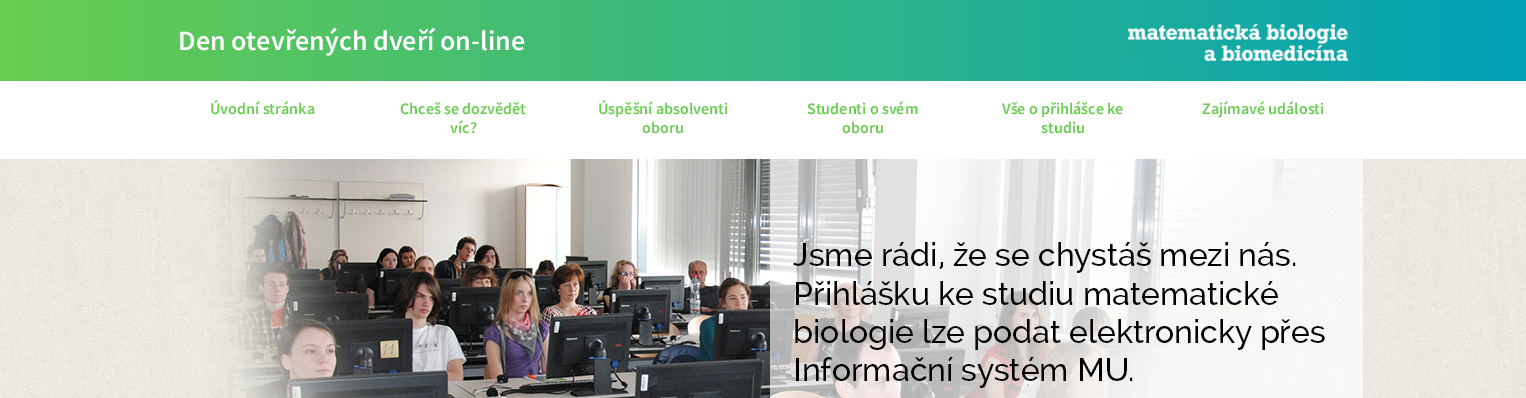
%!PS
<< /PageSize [1526 398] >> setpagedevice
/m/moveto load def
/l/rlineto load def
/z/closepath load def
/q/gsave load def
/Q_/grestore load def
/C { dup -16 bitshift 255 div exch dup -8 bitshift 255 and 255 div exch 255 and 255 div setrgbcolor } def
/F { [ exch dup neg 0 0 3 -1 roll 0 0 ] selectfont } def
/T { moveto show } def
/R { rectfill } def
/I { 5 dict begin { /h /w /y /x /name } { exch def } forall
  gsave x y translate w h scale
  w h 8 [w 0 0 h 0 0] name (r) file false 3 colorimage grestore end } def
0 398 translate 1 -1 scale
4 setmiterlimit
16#FFFFFF C
0 0 1526 398 R
q 0 0 m 1526 0 l 0 81 l -1526 0 l z clip newpath
<< /ShadingType 2 /ColorSpace /DeviceRGB /Coords [0 41 1526 40] /Extend [true true] /Function << /FunctionType 2 /Domain [0 1] /C0 [.408 .804 .314] /C1 [0 .631 .718] /N 1 >> >> shfill Q_
/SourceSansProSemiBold-SemiBold 28 F
(Den otevřených dveří on-line) 178 50 T
(1.rgb) 1128 24 220 37 I
/SourceSansProSemiBold-SemiBold 16 F
16#68CD50 C
(Úvodní stránka) 210 114 T
(Chceš se dozvědět) 400 114 T
(víc?) 450 133 T
(Úspěšní absolventi) 598 114 T
(oboru) 642 133 T
(Studenti o svém) 807 114 T
(oboru) 842 133 T
(Vše o přihlášce ke) 1002 114 T
(studiu) 1041 133 T
(Zajímavé události) 1202 114 T
(2.rgb) 0 159 1526 239 I
(3.rgb) 163 159 1200 239 I
showpage
